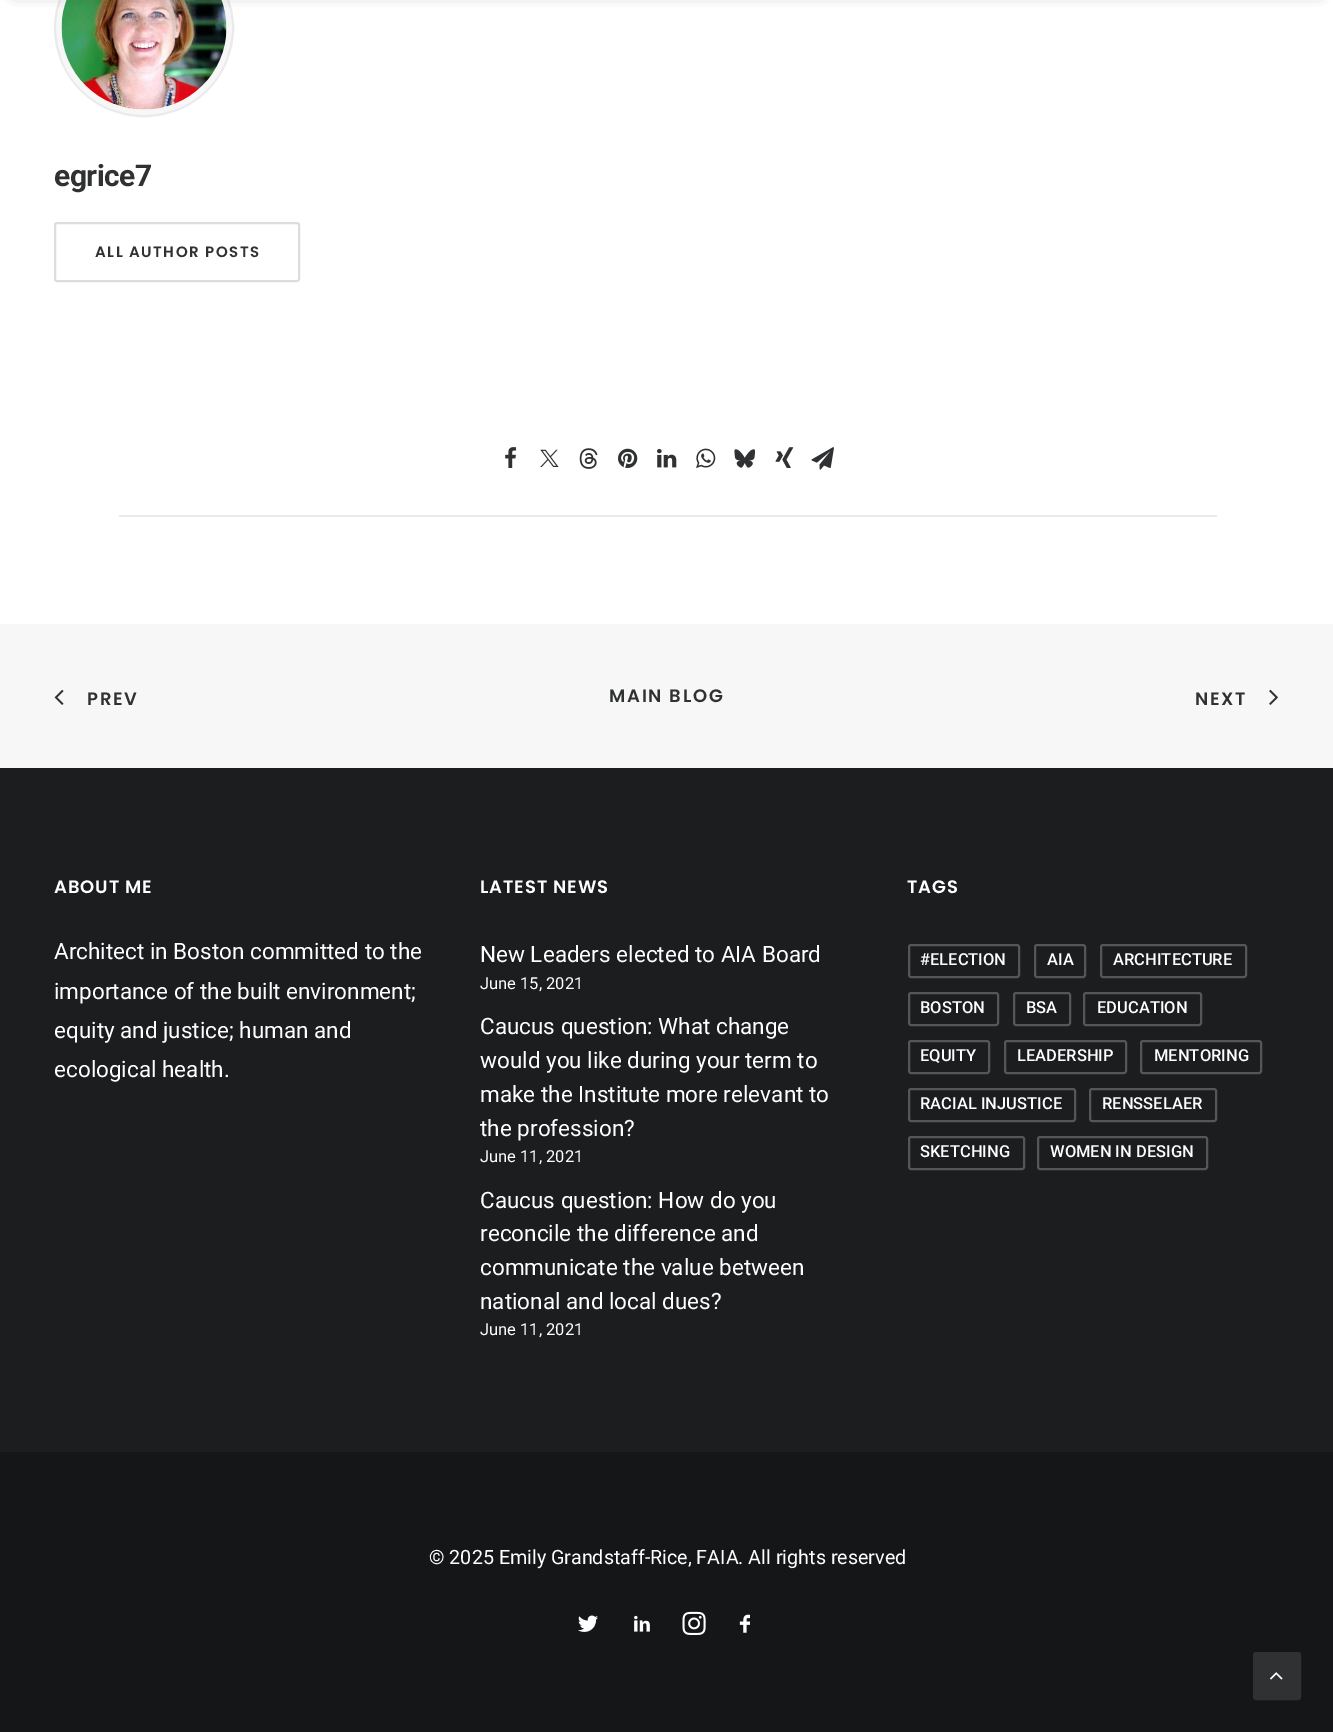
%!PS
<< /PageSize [1333 1732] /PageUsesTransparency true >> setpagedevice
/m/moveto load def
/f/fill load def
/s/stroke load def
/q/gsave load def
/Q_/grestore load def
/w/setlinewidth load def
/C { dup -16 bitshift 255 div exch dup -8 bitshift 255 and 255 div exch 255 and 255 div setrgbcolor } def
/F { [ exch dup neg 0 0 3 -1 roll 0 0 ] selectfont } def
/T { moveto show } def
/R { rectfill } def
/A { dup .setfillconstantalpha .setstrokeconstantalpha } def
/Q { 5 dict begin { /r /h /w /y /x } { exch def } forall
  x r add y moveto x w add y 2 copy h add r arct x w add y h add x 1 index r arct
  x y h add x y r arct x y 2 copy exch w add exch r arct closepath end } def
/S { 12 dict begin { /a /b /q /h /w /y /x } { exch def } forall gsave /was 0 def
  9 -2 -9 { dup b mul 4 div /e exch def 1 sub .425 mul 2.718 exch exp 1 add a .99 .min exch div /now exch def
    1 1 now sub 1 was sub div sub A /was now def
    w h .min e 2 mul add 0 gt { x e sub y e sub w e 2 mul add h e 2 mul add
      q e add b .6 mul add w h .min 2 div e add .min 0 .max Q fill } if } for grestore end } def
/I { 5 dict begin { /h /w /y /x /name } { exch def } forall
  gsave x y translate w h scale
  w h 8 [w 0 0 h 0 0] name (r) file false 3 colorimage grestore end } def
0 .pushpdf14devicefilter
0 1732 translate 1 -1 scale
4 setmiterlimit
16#141618 C
0 0 1333 1732 R
16#FFFFFF C
0 0 1333 624 R
16#F7F7F7 C
55 -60 178 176 88 Q q f Q_
16#EAEAEA C
2 w
s
(1.rgb) 61 0 166 110 I
16#000000 C
15 -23 1304 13 0 7.5 .6 S
/Roboto-Bold 30 F
16#303133 C
54 186 m -.5 0 (egrice7) ashow
16#DDDDDD C
55 223 244 58 2 Q s
/Poppins-SemiBold 15 F
16#303133 C
95 257 m 1.5 0 (ALL AUTHOR POSTS) ashow
16#EAEAEA C
119 515 1098 2 R
(2.rgb) 505 447 12 21 I
(3.rgb) 540 449 19 18 I
(4.rgb) 579 448 19 21 I
(5.rgb) 618 448 20 20 I
(6.rgb) 657 449 20 19 I
(7.rgb) 696 448 20 20 I
(8.rgb) 734 449 22 19 I
(9.rgb) 775 447 19 21 I
(10.rgb) 811 447 23 23 I
16#F7F7F7 C
0 624 1333 144 R
(11.rgb) 54 689 10 16 I
/Poppins-SemiBold 18 F
16#303133 C
87 705 m 1.75 0 (PREV) ashow
609 702 m 1.75 0 (MAIN BLOG) ashow
1195 705 m 1.75 0 (NEXT) ashow
(12.rgb) 1269 689 9 16 I
16#1B1D1F C
0 768 1333 684 R
16#FFFFFF C
54 893 m .9 0 (ABOUT ME) ashow
/Roboto-Regular 22.5 F
(Architect in Boston committed to the) 54 959 T
(importance of the built environment;) 54 999 T
(equity and justice; human and) 54 1038 T
(ecological health.) 54 1077 T
/Poppins-SemiBold 18 F
480 893 m .9 0 (LATEST NEWS) ashow
/Roboto-Regular 22.5 F
(New Leaders elected to AIA Board) 480 962 T
/Roboto-Regular 16.5 F
(June 15, 2021) 480 989 T
/Roboto-Regular 22.5 F
(Caucus question: What change) 480 1034 T
(would you like during your term to) 480 1068 T
(make the Institute more relevant to) 480 1102 T
(the profession?) 480 1136 T
/Roboto-Regular 16.5 F
(June 11, 2021) 480 1162 T
/Roboto-Regular 22.5 F
(Caucus question: How do you) 480 1208 T
(reconcile the difference and) 480 1241 T
(communicate the value between) 480 1275 T
(national and local dues?) 480 1309 T
/Roboto-Regular 16.5 F
(June 11, 2021) 480 1335 T
/Poppins-SemiBold 18 F
907 893 m .9 0 (TAGS) ashow
16#545657 C
909 945 110 32 2 Q s
/Roboto-Medium 16.5 F
16#FFFFFF C
(#ELECTION) 920 965 T
16#545657 C
1035 945 50 32 2 Q s
16#FFFFFF C
(AIA) 1047 965 T
16#545657 C
1101 945 145 32 2 Q s
16#FFFFFF C
(ARCHITECTURE) 1113 965 T
16#545657 C
909 993 89 32 2 Q s
16#FFFFFF C
(BOSTON) 920 1013 T
16#545657 C
1014 993 56 32 2 Q s
16#FFFFFF C
(BSA) 1026 1013 T
16#545657 C
1084 993 117 32 2 Q s
16#FFFFFF C
(EDUCATION) 1097 1013 T
16#545657 C
909 1041 80 32 2 Q s
16#FFFFFF C
(EQUITY) 920 1061 T
16#545657 C
1005 1041 121 32 2 Q s
16#FFFFFF C
(LEADERSHIP) 1017 1061 T
16#545657 C
1141 1041 120 32 2 Q s
16#FFFFFF C
(MENTORING) 1154 1061 T
16#545657 C
909 1089 166 32 2 Q s
16#FFFFFF C
(RACIAL INJUSTICE) 920 1109 T
16#545657 C
1090 1089 126 32 2 Q s
16#FFFFFF C
(RENSSELAER) 1102 1109 T
16#545657 C
909 1137 115 32 2 Q s
16#FFFFFF C
(SKETCHING) 920 1157 T
16#545657 C
1038 1137 169 32 2 Q s
16#FFFFFF C
(WOMEN IN DESIGN) 1050 1157 T
/Roboto-Regular 19.7 F
(© 2025 Emily Grandstaff-Rice, FAIA. All rights reserved) 429 1564 T
(13.rgb) 578 1615 20 17 I
(14.rgb) 634 1615 16 17 I
(15.rgb) 682 1611 24 24 I
(16.rgb) 739 1614 11 19 I
16#303133 C
1254 1653 46 46 2 Q q f Q_
s
(17.rgb) 1270 1672 13 8 I
.poppdf14devicefilter showpage
